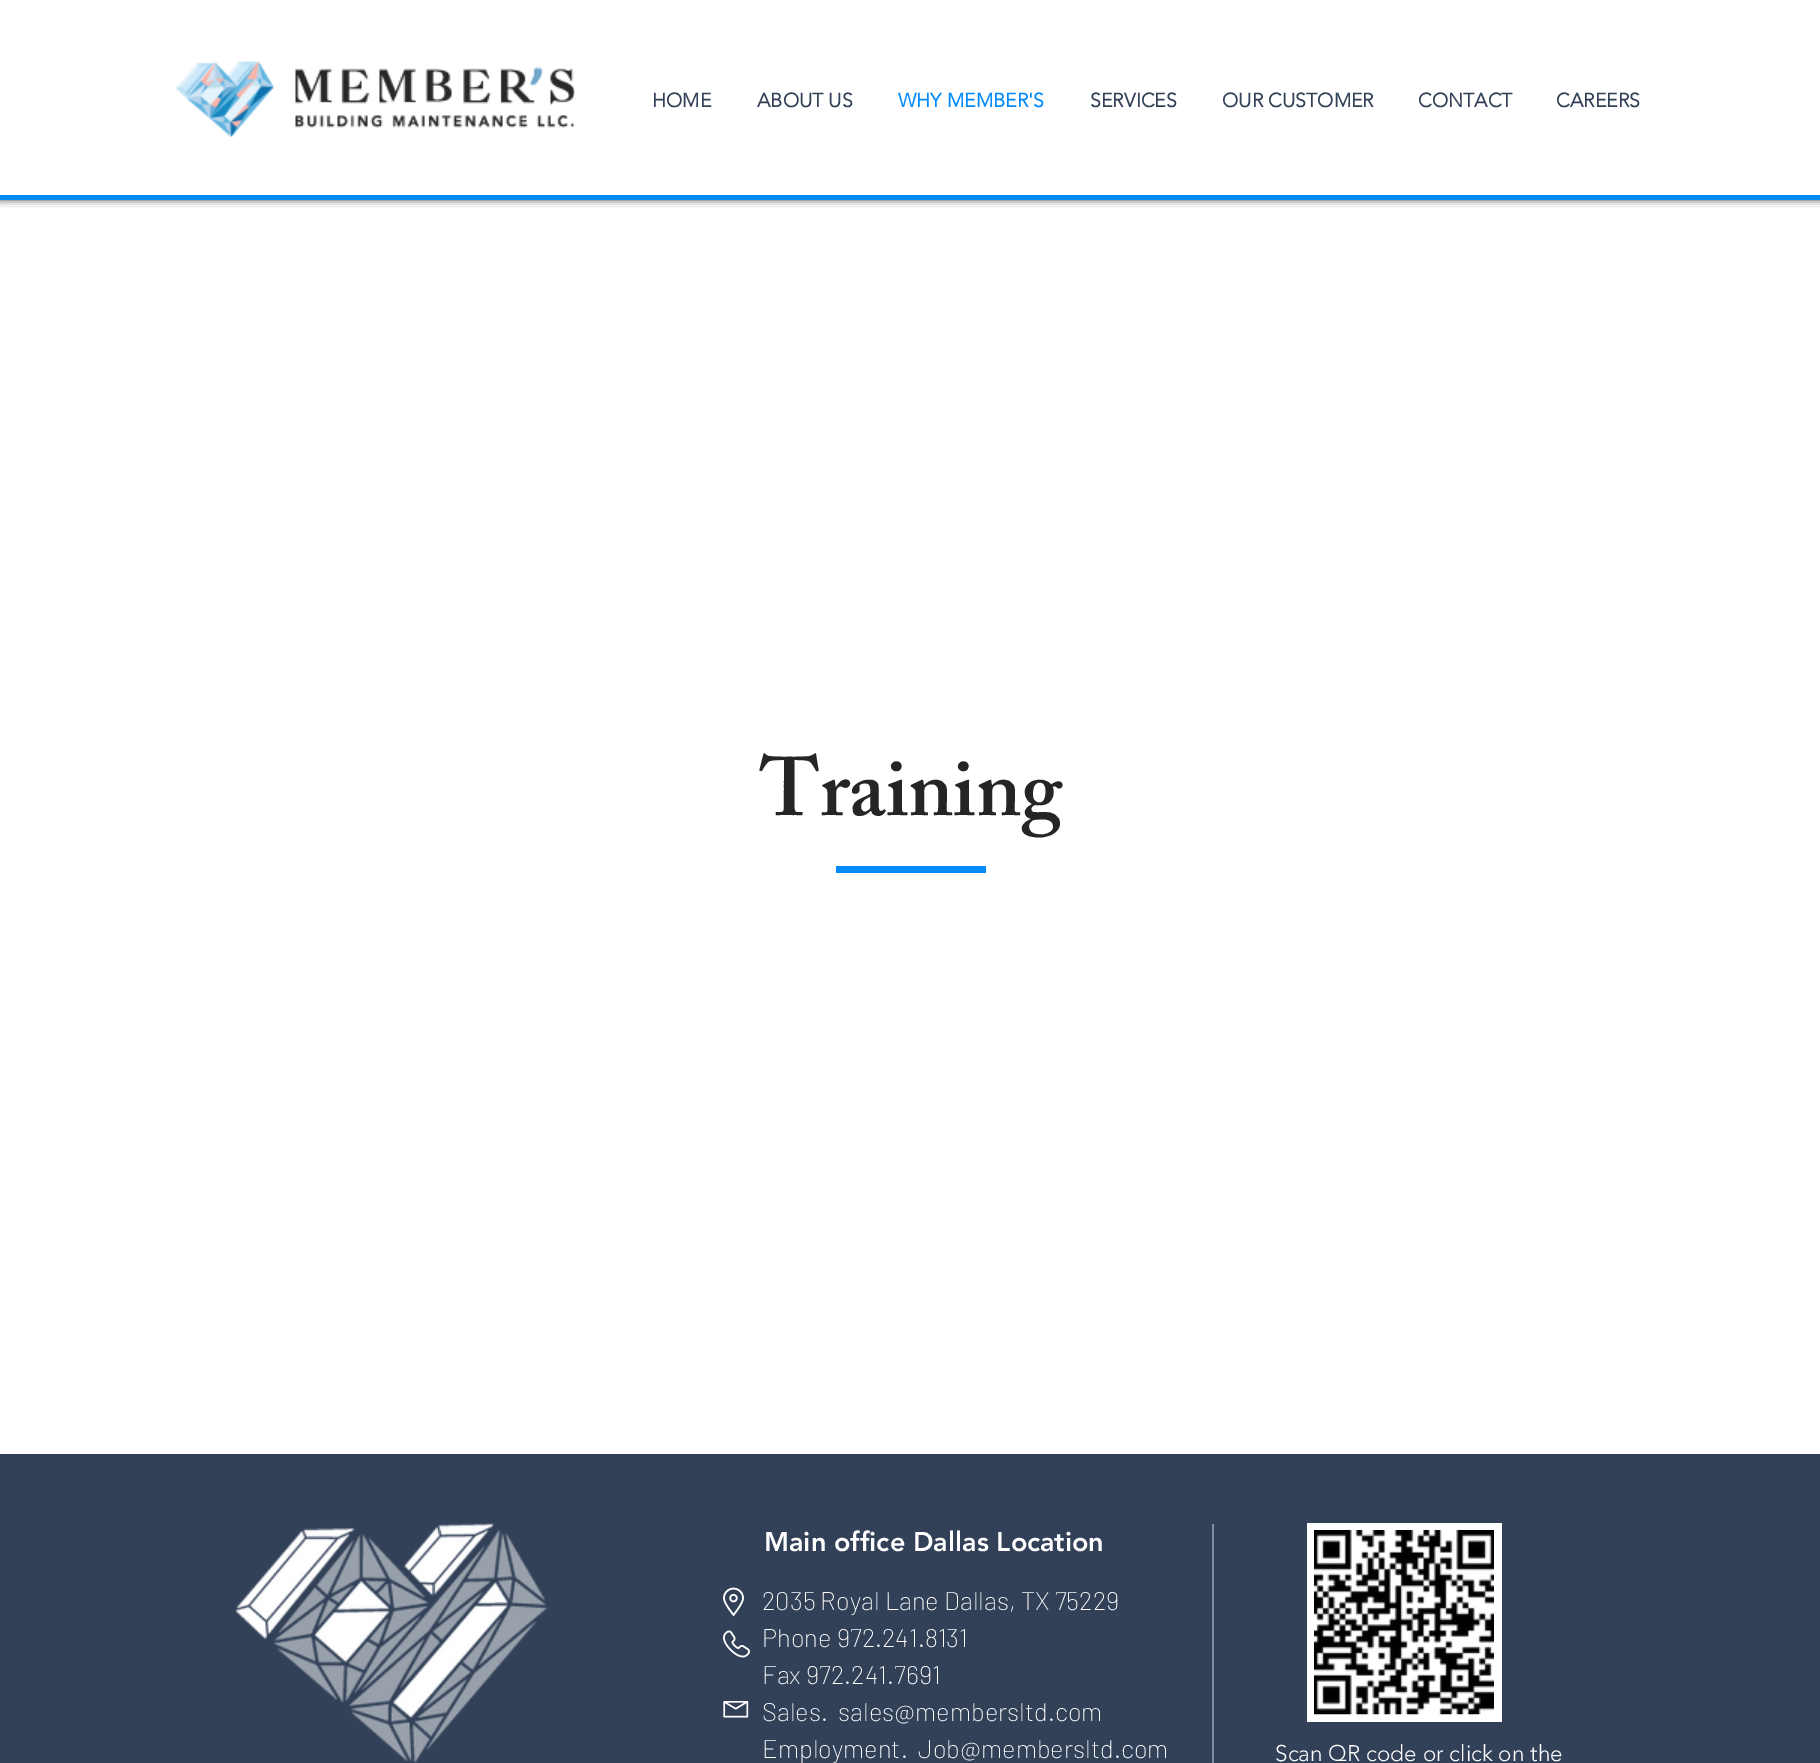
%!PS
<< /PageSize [1820 1763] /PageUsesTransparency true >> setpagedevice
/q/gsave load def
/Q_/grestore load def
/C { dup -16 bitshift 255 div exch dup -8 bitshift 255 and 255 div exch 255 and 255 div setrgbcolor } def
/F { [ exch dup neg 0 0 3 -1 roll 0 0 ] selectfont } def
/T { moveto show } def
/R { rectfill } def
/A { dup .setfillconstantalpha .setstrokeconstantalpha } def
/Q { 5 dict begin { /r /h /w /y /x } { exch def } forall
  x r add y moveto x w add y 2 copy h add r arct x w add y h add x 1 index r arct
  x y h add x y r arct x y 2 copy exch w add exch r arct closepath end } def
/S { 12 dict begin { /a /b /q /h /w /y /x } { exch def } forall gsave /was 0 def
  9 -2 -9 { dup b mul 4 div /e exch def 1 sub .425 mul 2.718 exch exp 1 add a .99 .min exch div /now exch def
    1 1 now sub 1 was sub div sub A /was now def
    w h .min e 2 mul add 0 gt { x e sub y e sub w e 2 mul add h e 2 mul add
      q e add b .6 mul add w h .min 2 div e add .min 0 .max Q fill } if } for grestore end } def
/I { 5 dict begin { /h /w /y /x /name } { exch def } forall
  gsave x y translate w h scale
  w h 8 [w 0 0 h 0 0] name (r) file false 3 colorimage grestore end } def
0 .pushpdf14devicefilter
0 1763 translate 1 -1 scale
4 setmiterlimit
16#FFFFFF C
0 0 1820 1763 R
q
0 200 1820 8 rectclip
16#000000 C
0 0 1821 200 0 4 .7 S
Q_
16#008AFC C
0 195 1820 5 R
(1.rgb) 175 61 400 76 I
/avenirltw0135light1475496-Bold 19.5 F
16#324158 C
(HOME) 652 107 T
(ABOUT US) 757 107 T
16#008AFC C
(WHY MEMBER'S) 898 107 T
16#324158 C
(SERVICES) 1090 107 T
(OUR CUSTOMER) 1222 107 T
(CONTACT) 1418 107 T
(CAREERS) 1556 107 T
/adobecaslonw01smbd-SemiBold 82.5 F
16#252525 C
(Training) 760 815 T
16#008AFC C
836 866 150 7 R
16#324158 C
0 1454 1820 309 R
(2.rgb) 235 1523 313 240 I
/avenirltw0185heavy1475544-Black 27 F
16#FFFFFF C
(Main office Dallas Location) 764 1551 T
16#828B99 C
1212 1524 2 239 R
(3.rgb) 723 1587 21 30 I
/Barlow-ExtraLight 25.5 F
16#FFFFFF C
(2035 Royal Lane Dallas, TX 75229) 762 1610 T
(Phone 972.241.8131) 762 1647 T
(Fax 972.241.7691) 762 1684 T
(Sales.) 762 1721 T
(sales@membersltd.com) 838 1721 T
(Employment.) 762 1758 T
(Job@membersltd.com) 918 1758 T
(4.rgb) 723 1630 27 28 I
(5.rgb) 723 1701 26 17 I
1307 1523 195 199 R
(6.rgb) 1314 1530 180 185 I
/avenirltw0135light1475496-Light 22.5 F
(Scan QR code or click on the) 1275 1761 T
.poppdf14devicefilter showpage
